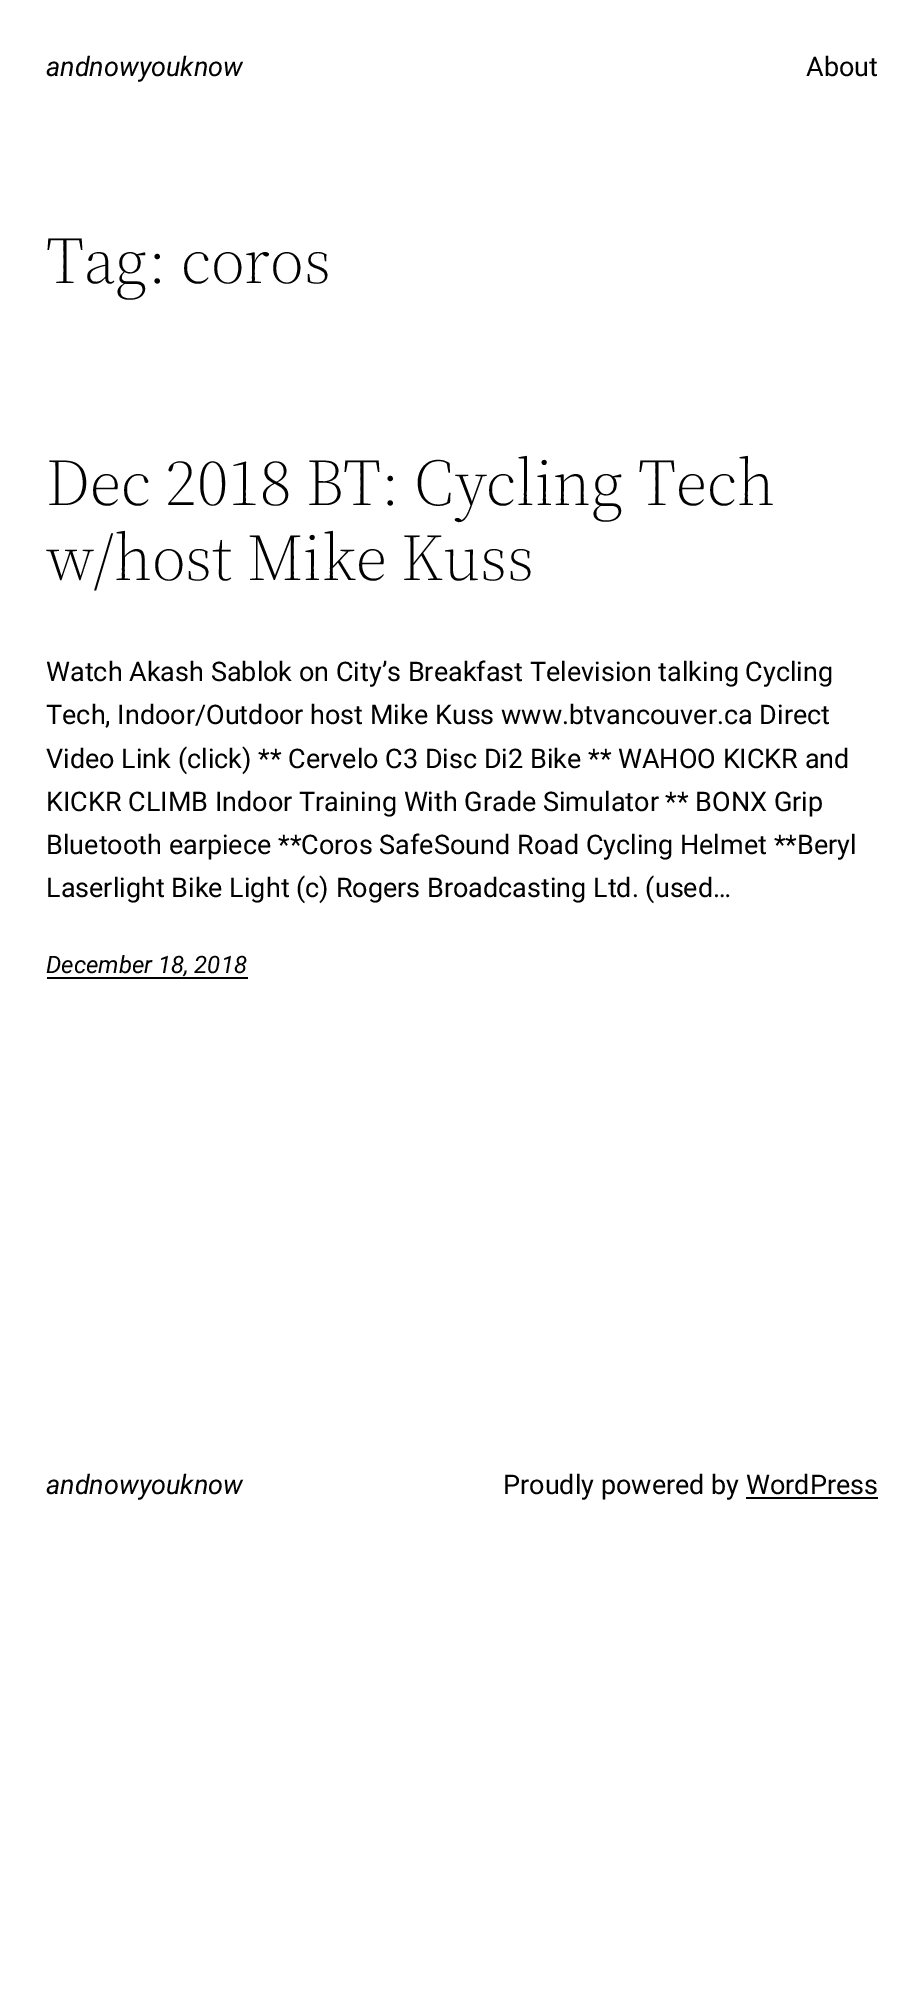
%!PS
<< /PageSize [923 2013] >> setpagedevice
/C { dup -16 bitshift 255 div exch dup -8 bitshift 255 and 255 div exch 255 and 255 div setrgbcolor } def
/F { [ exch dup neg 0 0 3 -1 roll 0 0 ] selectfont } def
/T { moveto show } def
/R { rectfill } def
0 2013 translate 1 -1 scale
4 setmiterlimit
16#FFFFFF C
0 0 923 2013 R
/Roboto-Italic 27 F
16#000000 C
(andnowyouknow) 46 76 T
/Roboto-Regular 27 F
(About) 806 76 T
/SourceSerif4-Light 66 F
(Tag: coros) 46 283 T
(Dec 2018 BT: Cycling Tech) 46 505 T
(w/host Mike Kuss) 46 580 T
/Roboto-Regular 27 F
(Watch Akash Sablok on City’s Breakfast Television talking Cycling) 46 681 T
(Tech, Indoor/Outdoor host Mike Kuss www.btvancouver.ca Direct) 46 724 T
(Video Link \(click\) ** Cervelo C3 Disc Di2 Bike ** WAHOO KICKR and) 46 768 T
(KICKR CLIMB Indoor Training With Grade Simulator ** BONX Grip) 46 811 T
(Bluetooth earpiece **Coros SafeSound Road Cycling Helmet **Beryl) 46 854 T
(Laserlight Bike Light \(c\) Rogers Broadcasting Ltd. \(used…) 46 897 T
/Roboto-Italic 24 F
(December 18, 2018) 46 973 T
47 977 201 2 R
/Roboto-Italic 27 F
(andnowyouknow) 46 1494 T
/Roboto-Regular 27 F
(Proudly powered by WordPress) 503 1494 T
746 1497 132 2 R
showpage
